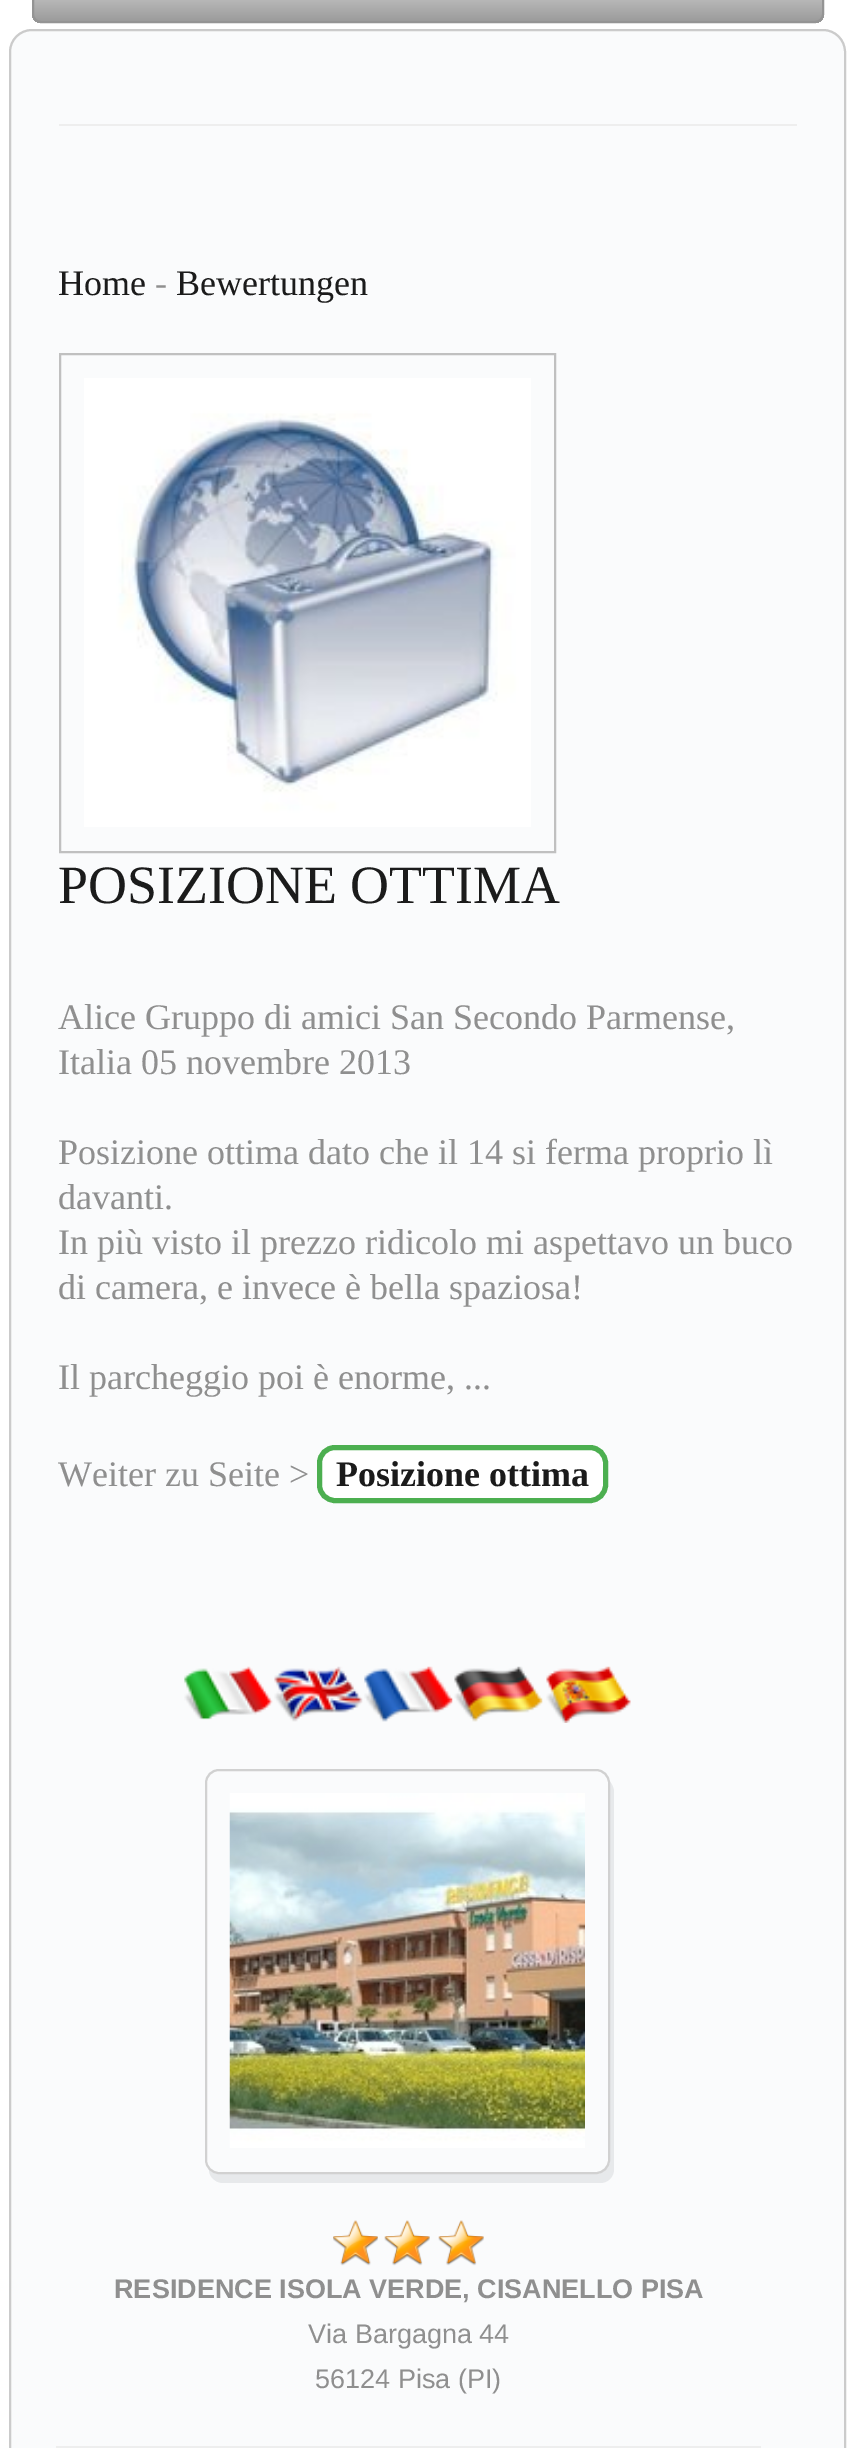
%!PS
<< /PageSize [854 2448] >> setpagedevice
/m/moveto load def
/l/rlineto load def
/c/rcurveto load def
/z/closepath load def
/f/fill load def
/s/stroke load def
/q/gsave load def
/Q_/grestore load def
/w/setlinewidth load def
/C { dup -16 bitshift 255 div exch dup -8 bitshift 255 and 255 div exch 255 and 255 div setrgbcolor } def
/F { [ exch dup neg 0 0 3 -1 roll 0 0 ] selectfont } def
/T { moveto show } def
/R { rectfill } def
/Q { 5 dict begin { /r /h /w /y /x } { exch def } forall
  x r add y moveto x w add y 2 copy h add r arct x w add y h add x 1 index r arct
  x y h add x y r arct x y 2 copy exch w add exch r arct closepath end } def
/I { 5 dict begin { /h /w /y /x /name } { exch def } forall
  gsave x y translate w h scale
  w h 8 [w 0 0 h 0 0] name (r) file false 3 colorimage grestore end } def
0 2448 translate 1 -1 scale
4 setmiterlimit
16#FFFFFF C
0 0 854 2448 R
q 32 -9 792 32 9 Q clip newpath
<< /ShadingType 2 /ColorSpace /DeviceRGB /Coords [428 -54 428 23] /Extend [true true] /Function << /FunctionType 2 /Domain [0 1] /C0 [1 1 1] /C1 [.6 .6 .6] /N 1 >> >> shfill Q_
16#949494 C
2 w
33 -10 790 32 8 Q s
16#FAFBFC C
10 30 835 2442 22 Q q f Q_
16#CBCBCB C
s
16#EEEEEE C
59 124 738 2 R
/LiberationSerif-Regular 36 F
16#1B1B1B C
(Home) 58 295 T
16#8F8F8F C
(-) 155 295 T
16#1B1B1B C
(Bewertungen) 176 295 T
16#C0C0C0 C
60 354 495 498 rectstroke
(1.rgb) 84 378 447 449 I
/LiberationSerif-Regular 54 F
16#1B1B1B C
(POSIZIONE OTTIMA) 58 903 T
/LiberationSerif-Regular 36 F
16#8F8F8F C
(Alice Gruppo di amici San Secondo Parmense,) 58 1029 T
(Italia 05 novembre 2013) 58 1074 T
(Posizione ottima dato che il 14 si ferma proprio lì) 58 1164 T
(davanti.) 58 1209 T
(In più visto il prezzo ridicolo mi aspettavo un buco) 58 1254 T
(di camera, e invece è bella spaziosa!) 58 1299 T
(Il parcheggio poi è enorme, ...) 58 1389 T
(Weiter zu Seite >) 58 1486 T
16#FFFFFF C
319.5 1447.5 286 53 15.5 Q q f Q_
16#4CAF50 C
5 w
s
/LiberationSerif-Bold 36 F
16#1B1B1B C
(Posizione ottima) 336 1486 T
(2.rgb) 184 1666 89 54 I
(3.rgb) 274 1666 89 56 I
(4.rgb) 364 1666 89 56 I
(5.rgb) 454 1666 89 56 I
(6.rgb) 546 1666 85 57 I
16#E7E9EB C
209 2170 m 0 7 7 13 14 13 c 377 0 l 8 0 14 -6 14 -14 c 0 -377 l 0 -4 -2 -8 -4 -10 c 0 378 l 0 7 -6 14 -14 14 c -378 0 l -3 0 -7 -2 -9 -4 c z f
16#D1D1D1 C
2 w
206 1770 403 403 13 Q s
(7.rgb) 229 1793 356 355 I
(8.rgb) 333 2220 45 46 I
(9.rgb) 384 2220 46 46 I
(10.rgb) 438 2220 46 46 I
/LiberationSans-Bold 27 F
16#8F8F8F C
(RESIDENCE ISOLA VERDE, CISANELLO PISA) 114 2298 T
/LiberationSans-Regular 27 F
(Via Bargagna 44) 308 2343 T
(56124 Pisa \(PI\)) 315 2388 T
16#EEEEEE C
56 2446 705 2 R
showpage
